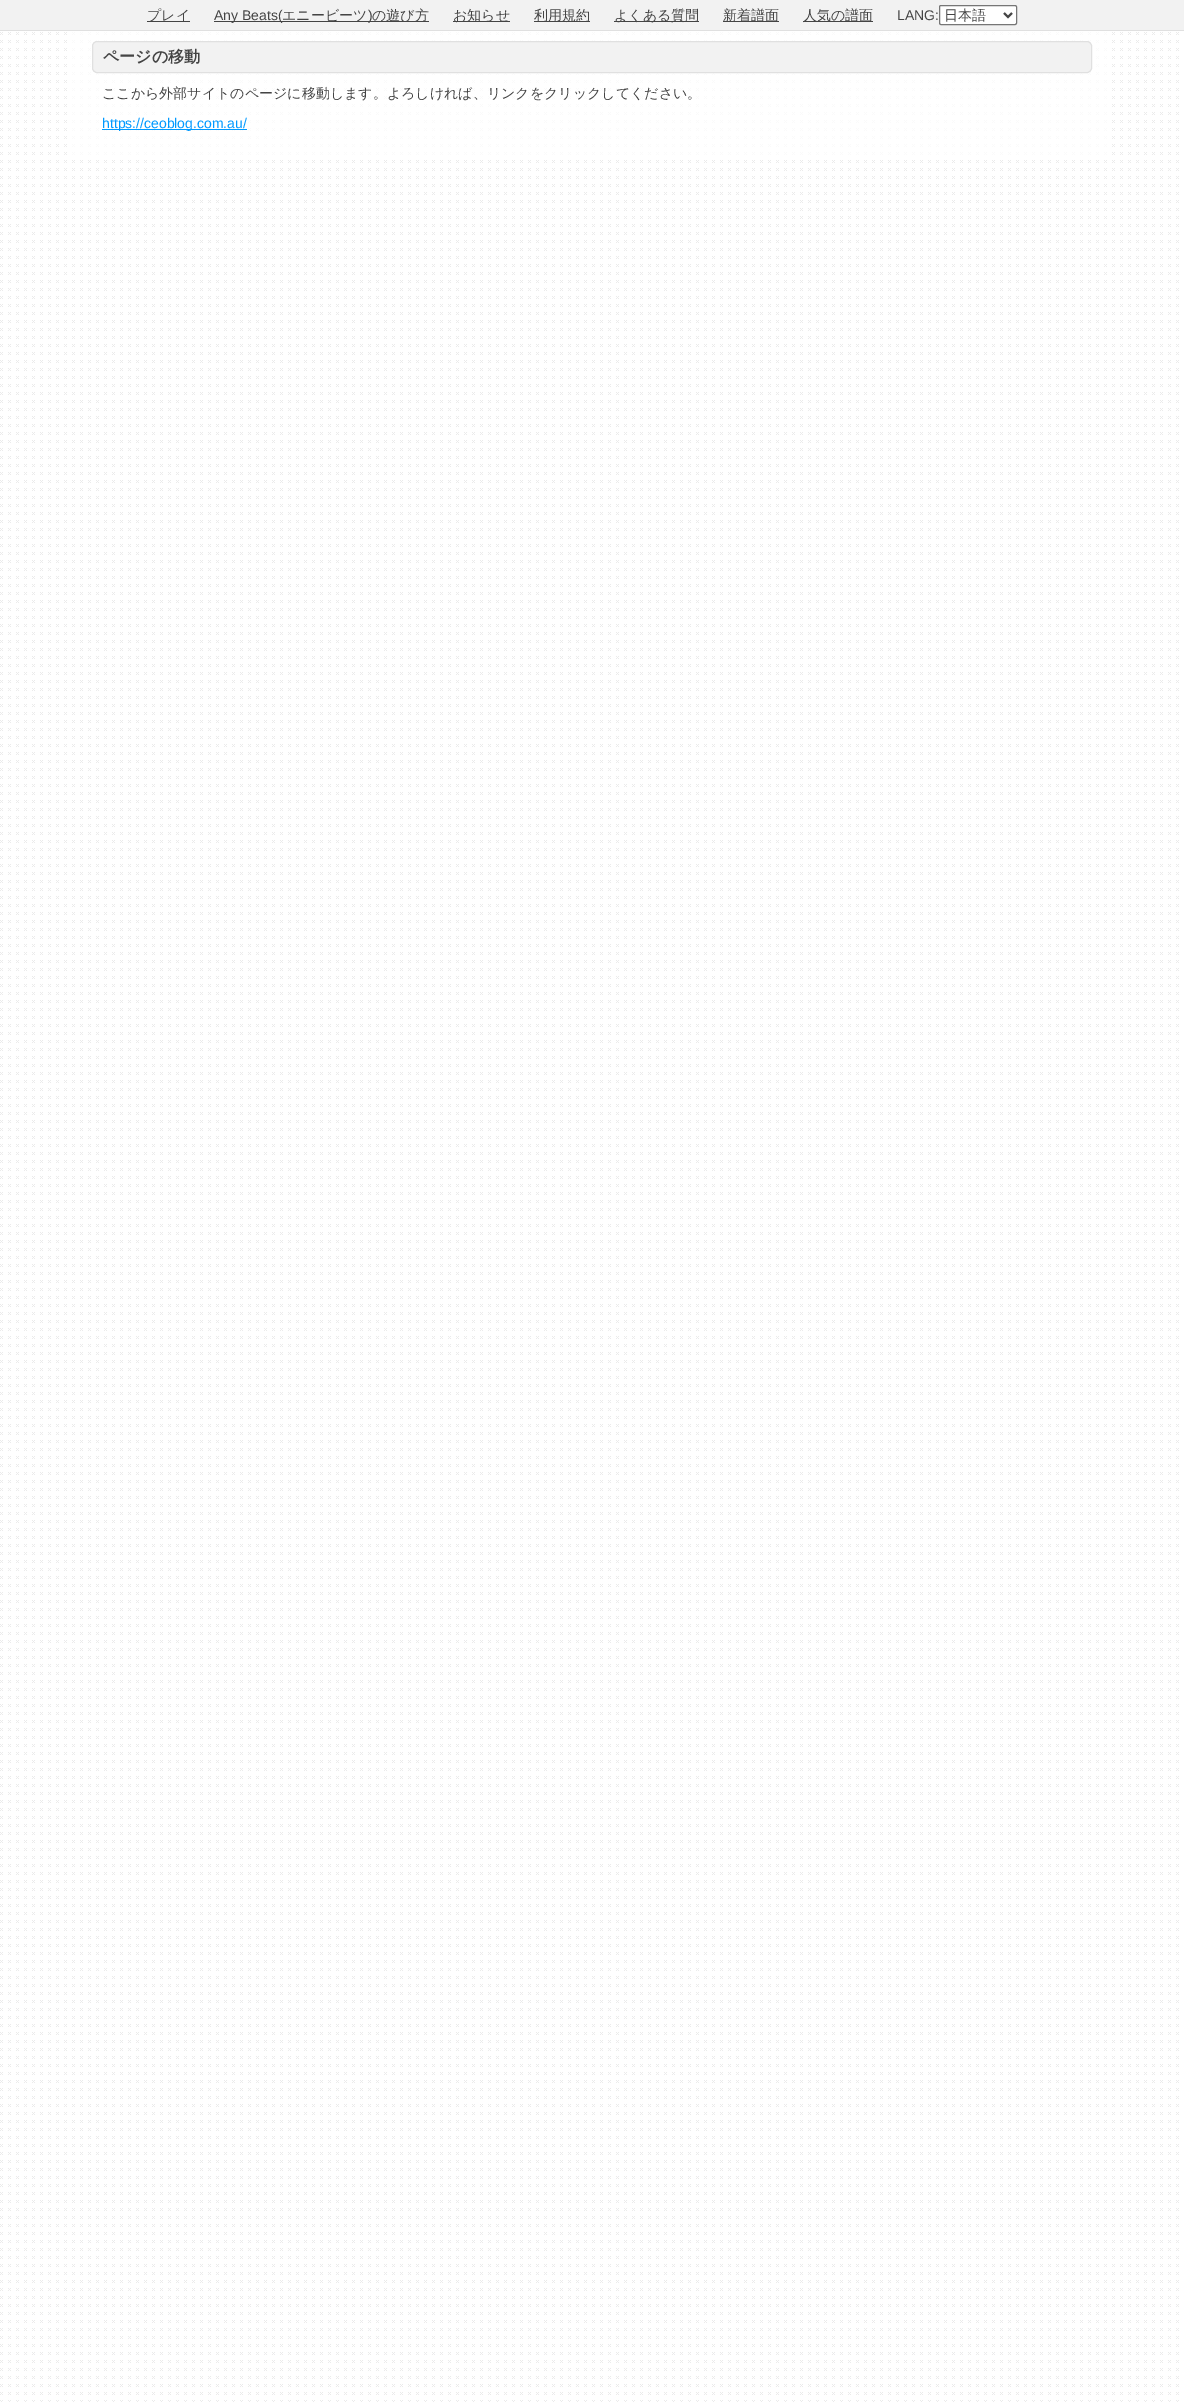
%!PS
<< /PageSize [1184 2402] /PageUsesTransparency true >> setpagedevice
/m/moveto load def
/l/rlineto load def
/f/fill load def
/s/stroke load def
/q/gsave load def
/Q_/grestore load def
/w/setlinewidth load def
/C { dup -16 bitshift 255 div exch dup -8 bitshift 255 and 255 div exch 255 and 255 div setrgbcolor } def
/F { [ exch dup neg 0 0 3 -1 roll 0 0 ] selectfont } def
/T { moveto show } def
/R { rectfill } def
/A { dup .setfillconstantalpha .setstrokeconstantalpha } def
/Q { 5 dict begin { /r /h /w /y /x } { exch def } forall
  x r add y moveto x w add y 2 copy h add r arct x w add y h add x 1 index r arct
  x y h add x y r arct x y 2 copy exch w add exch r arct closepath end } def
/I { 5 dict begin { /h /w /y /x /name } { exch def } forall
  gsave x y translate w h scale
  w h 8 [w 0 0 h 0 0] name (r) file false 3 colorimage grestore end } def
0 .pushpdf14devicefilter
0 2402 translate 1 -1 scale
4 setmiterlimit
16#FFFFFF C
0 0 1184 2402 R
(1.rgb) 0 31 1179 2371 I
16#F2F2F2 C
0 0 1184 30 R
16#E0E0E0 C
0 30 1184 1 R
16#444444 C
147 21 43 1 R
/WenQuanYiZenHei-Medium 14 F
(プレイ) 147 20 T
214 21 215 1 R
/LiberationSans-Regular 14 F
(Any Beats\() 214 20 T
/WenQuanYiZenHei-Medium 14 F
(エニービーツ) 282 20 T
/LiberationSans-Regular 14 F
(\)) 368 20 T
/WenQuanYiZenHei-Medium 14 F
(の遊び方) 372 20 T
453 21 57 1 R
(お知らせ) 453 20 T
534 21 56 1 R
(利用規約) 534 20 T
614 21 85 1 R
(よくある質問) 614 20 T
723 21 56 1 R
(新着譜面) 723 20 T
803 21 70 1 R
(人気の譜面) 803 20 T
/LiberationSans-Regular 14 F
(LANG:) 897 20 T
16#FFFFFF C
939.5 5.5 77 19 1.5 Q q f Q_
16#767676 C
s
16#444444 C
2 w
1004 13 m 4 4 l 4 -4 l s
/WenQuanYiZenHei-Medium 14 F
(日本語) 944 20 T
0.75 A
16#FFFFFF C
72 32 1035 123 R
1 A
16#F2F2F2 C
92.5 41.5 999 31 4.5 Q q f Q_
16#E0E0E0 C
1 w
s
/WenQuanYiZenHei-Bold 16 F
16#444444 C
(ページの移動) 103 62 T
/WenQuanYiZenHei-Medium 14 F
(ここから外部サイトのページに移動します。よろしければ、リンクをクリックしてください。) 102 98 T
16#0099FF C
102 129 145 1 R
/LiberationSans-Regular 14 F
(https://ceoblog.com.au/) 102 128 T
.poppdf14devicefilter showpage
